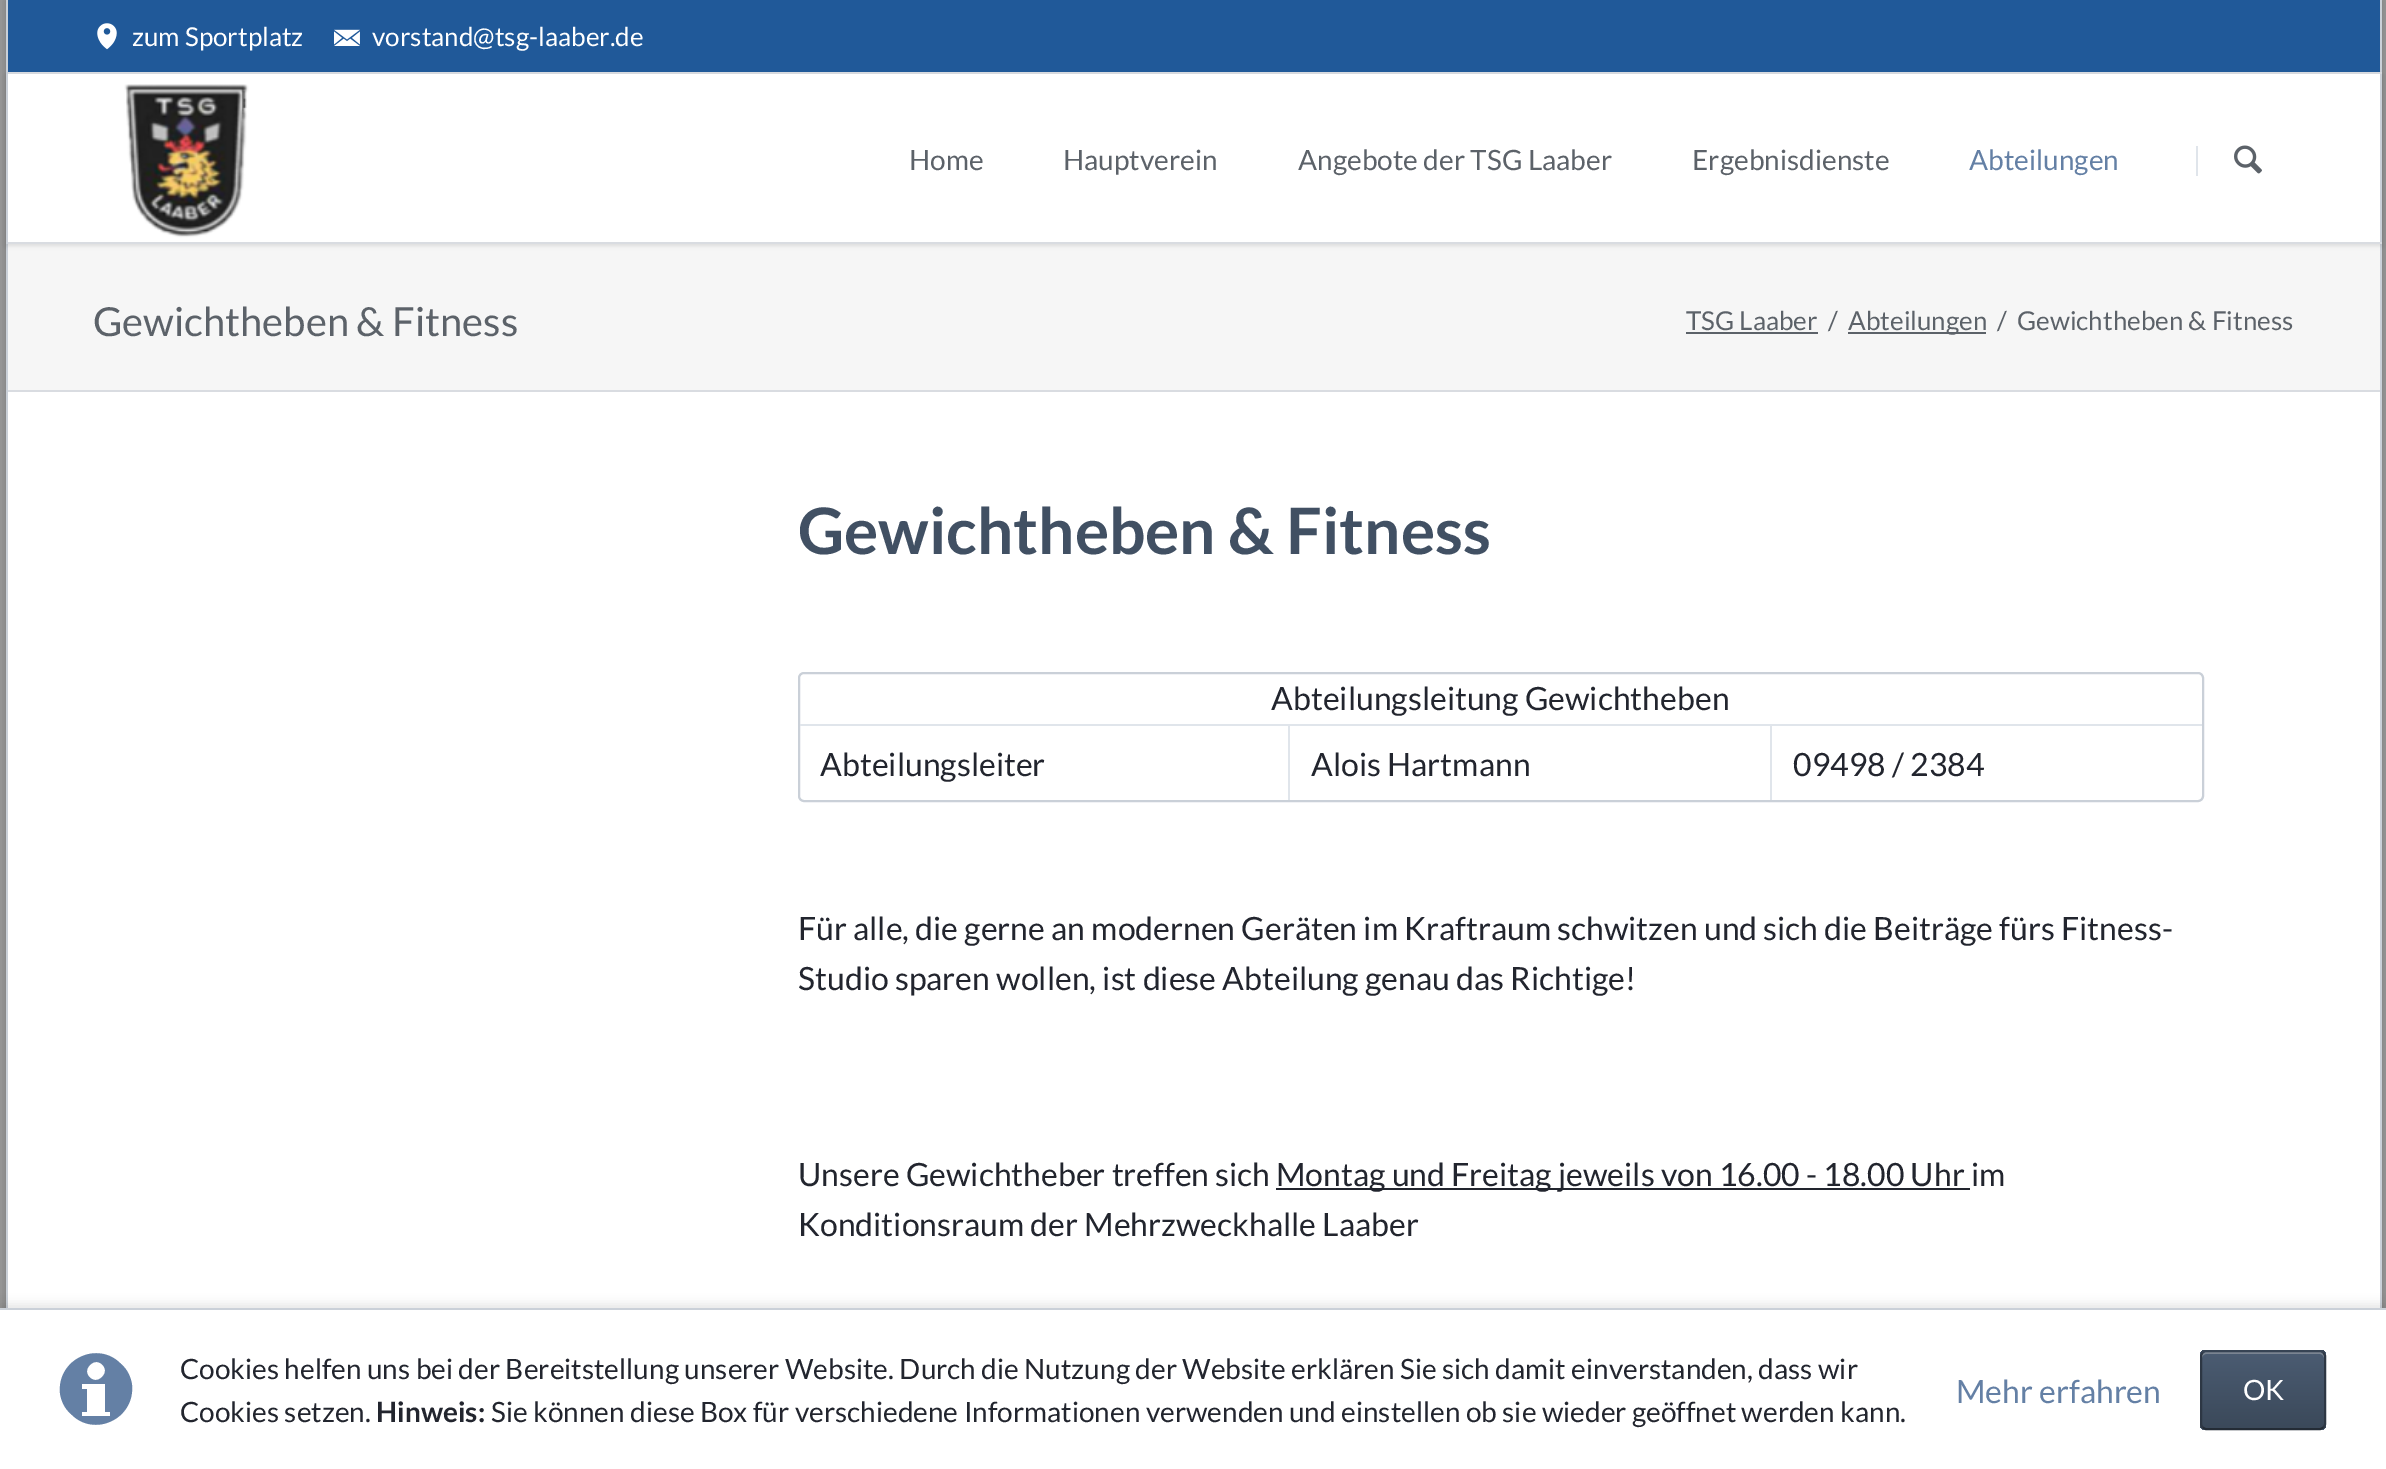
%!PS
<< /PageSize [2386 1469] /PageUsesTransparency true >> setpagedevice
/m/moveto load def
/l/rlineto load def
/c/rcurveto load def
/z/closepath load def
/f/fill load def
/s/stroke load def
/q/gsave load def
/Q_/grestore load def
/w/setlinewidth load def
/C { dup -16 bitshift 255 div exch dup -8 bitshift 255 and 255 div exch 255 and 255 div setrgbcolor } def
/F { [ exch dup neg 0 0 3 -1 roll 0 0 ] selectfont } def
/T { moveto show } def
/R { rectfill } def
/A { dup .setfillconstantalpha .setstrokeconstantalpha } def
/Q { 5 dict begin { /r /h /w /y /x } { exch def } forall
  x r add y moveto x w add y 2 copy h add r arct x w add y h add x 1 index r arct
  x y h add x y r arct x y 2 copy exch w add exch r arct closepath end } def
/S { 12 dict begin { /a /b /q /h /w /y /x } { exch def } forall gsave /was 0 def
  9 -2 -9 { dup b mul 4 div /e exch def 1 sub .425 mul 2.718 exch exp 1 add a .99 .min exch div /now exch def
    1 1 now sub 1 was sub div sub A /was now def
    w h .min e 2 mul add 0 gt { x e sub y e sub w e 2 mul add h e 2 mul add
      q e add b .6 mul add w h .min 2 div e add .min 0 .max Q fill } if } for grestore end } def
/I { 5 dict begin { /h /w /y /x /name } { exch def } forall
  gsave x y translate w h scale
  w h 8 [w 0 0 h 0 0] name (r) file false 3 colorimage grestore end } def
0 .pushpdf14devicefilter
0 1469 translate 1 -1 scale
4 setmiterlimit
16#999999 C
0 0 2386 1469 R
16#000000 C
6 0 2376 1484 0 5 .2 S
16#FFFFFF C
8 392 2372 916 R
16#CAD0D8 C
2380 244 2 1064 R
6 244 2 1064 R
16#205999 C
8 0 2372 72 R
16#CAD0D8 C
2380 0 2 74 R
16#D9DCE1 C
6 72 2376 2 R
16#CAD0D8 C
6 0 2 74 R
(1.rgb) 97 23 20 27 I
/Lato-Regular 26 F
16#FFFFFF C
(zum Sportplatz) 132 46 T
(2.rgb) 334 29 26 17 I
(vorstand@tsg-laaber.de) 372 46 T
16#F6F6F6 C
8 244 2372 146 R
16#000000 C
6 76 2376 170 0 2 .1 S
16#FFFFFF C
8 74 2372 168 R
16#CAD0D8 C
2380 74 2 170 R
16#D9DCE1 C
6 242 2376 2 R
16#CAD0D8 C
6 74 2 170 R
(3.rgb) 124 84 125 154 I
/Lato-Regular 28 F
16#5C6269 C
(Home) 909 170 T
(Hauptverein) 1063 170 T
(Angebote der TSG Laaber) 1298 170 T
(Ergebnisdienste) 1692 170 T
16#6480A5 C
(Abteilungen) 1969 170 T
16#E0E5EB C
2196 146 2 30 R
(4.rgb) 2234 145 28 29 I
16#D9DCE1 C
8 390 2372 2 R
/Lato-Regular 40 F
16#5C6269 C
(Gewichtheben & Fitness) 93 336 T
/Lato-Regular 26 F
(TSG Laaber) 1686 330 T
1686 332 132 2 R
(/) 1828 330 T
1848 332 138 2 R
(Abteilungen) 1848 330 T
(/) 1997 330 T
(Gewichtheben & Fitness) 2017 330 T
/Lato-Bold 64 F
16#415063 C
(Gewichtheben & Fitness) 798 554 T
16#CAD0D8 C
2 w
799 673 1404 128 5 Q s
/Lato-Regular 32 F
16#22252E C
(Abteilungsleitung Gewichtheben) 1271 710 T
16#E0E5EB C
800 724 1402 2 R
16#22252E C
(Abteilungsleiter) 820 776 T
16#E0E5EB C
1288 724 2 76 R
16#22252E C
(Alois Hartmann) 1311 776 T
16#E0E5EB C
1770 724 2 76 R
16#22252E C
(09498 / 2384) 1793 776 T
(Für alle, die gerne an modernen Geräten im Kraftraum schwitzen und sich die Beiträge fürs Fitness-) 798 940 T
(Studio sparen wollen, ist diese Abteilung genau das Richtige!) 798 990 T
(Unsere Gewichtheber treffen sich) 798 1186 T
1276 1188 694 2 R
(Montag und Freitag jeweils von 16.00 - 18.00 Uhr im) 1276 1186 T
(Konditionsraum der Mehrzweckhalle Laaber) 798 1236 T
16#000000 C
0 1304 2386 162 0 5 .1 S
16#FFFFFF C
0 1310 2386 159 R
16#CAD0D8 C
0 1308 2386 2 R
16#6480A5 C
121 1364 m -23 -24 -64 -5 -61 29 c 1 8 5 16 11 21 c 23 24 64 5 61 -29 c -1 -8 -5 -16 -11 -21 c z 90 1365 m 8 -9 21 4 12 12 c -8 9 -21 -4 -12 -12 c z 110 1416 m -28 0 l 0 -4 l 5 0 l 0 -23 l -5 0 l 0 -5 l 23 0 l 0 28 l 5 0 l z f
/Lato-Regular 28 F
16#22252E C
(Cookies helfen uns bei der Bereitstellung unserer Website. Durch die Nutzung der Website erklären Sie sich damit einverstanden, dass wir) 180 1379 T
(Cookies setzen.) 180 1422 T
/Lato-Bold 28 F
(Hinweis:) 376 1422 T
/Lato-Regular 28 F
(Sie können diese Box für verschiedene Informationen verwenden und einstellen ob sie wieder geöffnet werden kann.) 491 1422 T
/Lato-Regular 32 F
16#6480A5 C
(Mehr erfahren) 1956 1403 T
q
2200 1350 126 80 6 Q clip newpath
q 2200 1350 m 126 0 l 0 2 l -126 0 l z clip newpath
<< /ShadingType 2 /ColorSpace /DeviceRGB /Coords [2263 1276 2263 1352] /Extend [true true] /Function << /FunctionType 2 /Domain [0 1] /C0 [.294 .361 .447] /C1 [.231 .286 .353] /N 1 >> >> shfill Q_
q 2200 1352 m 126 0 l 0 76 l -126 0 l z clip newpath
<< /ShadingType 2 /ColorSpace /DeviceRGB /Coords [2263 1352 2263 1428] /Extend [true true] /Function << /FunctionType 2 /Domain [0 1] /C0 [.294 .361 .447] /C1 [.231 .286 .353] /N 1 >> >> shfill Q_
q 2200 1428 m 126 0 l 0 2 l -126 0 l z clip newpath
<< /ShadingType 2 /ColorSpace /DeviceRGB /Coords [2263 1428 2263 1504] /Extend [true true] /Function << /FunctionType 2 /Domain [0 1] /C0 [.294 .361 .447] /C1 [.231 .286 .353] /N 1 >> >> shfill Q_
Q_
16#7A8491 C
2206 1354 m 114 0 l 2 0 4 2 4 4 c 0 -2 l 0 -2 -2 -4 -4 -4 c -114 0 l -2 0 -4 2 -4 4 c 0 2 l 0 -2 2 -4 4 -4 c z f
16#374454 C
2202.5 1352.5 m 3 -1.5 l 115 0 l 3 1.5 l s
16#2D3744 C
2323.5 1352.5 m 1.5 3 l 0 69 l -1.5 3 l s
16#232B35 C
2323.5 1427.5 m -3 1.5 l -115 0 l -3 -1.5 l s
16#2D3744 C
2202.5 1427.5 m -1.5 -3 l 0 -69 l 1.5 -3 l s
/Lato-Regular 28 F
16#FFFFFF C
(OK) 2243 1400 T
.poppdf14devicefilter showpage
